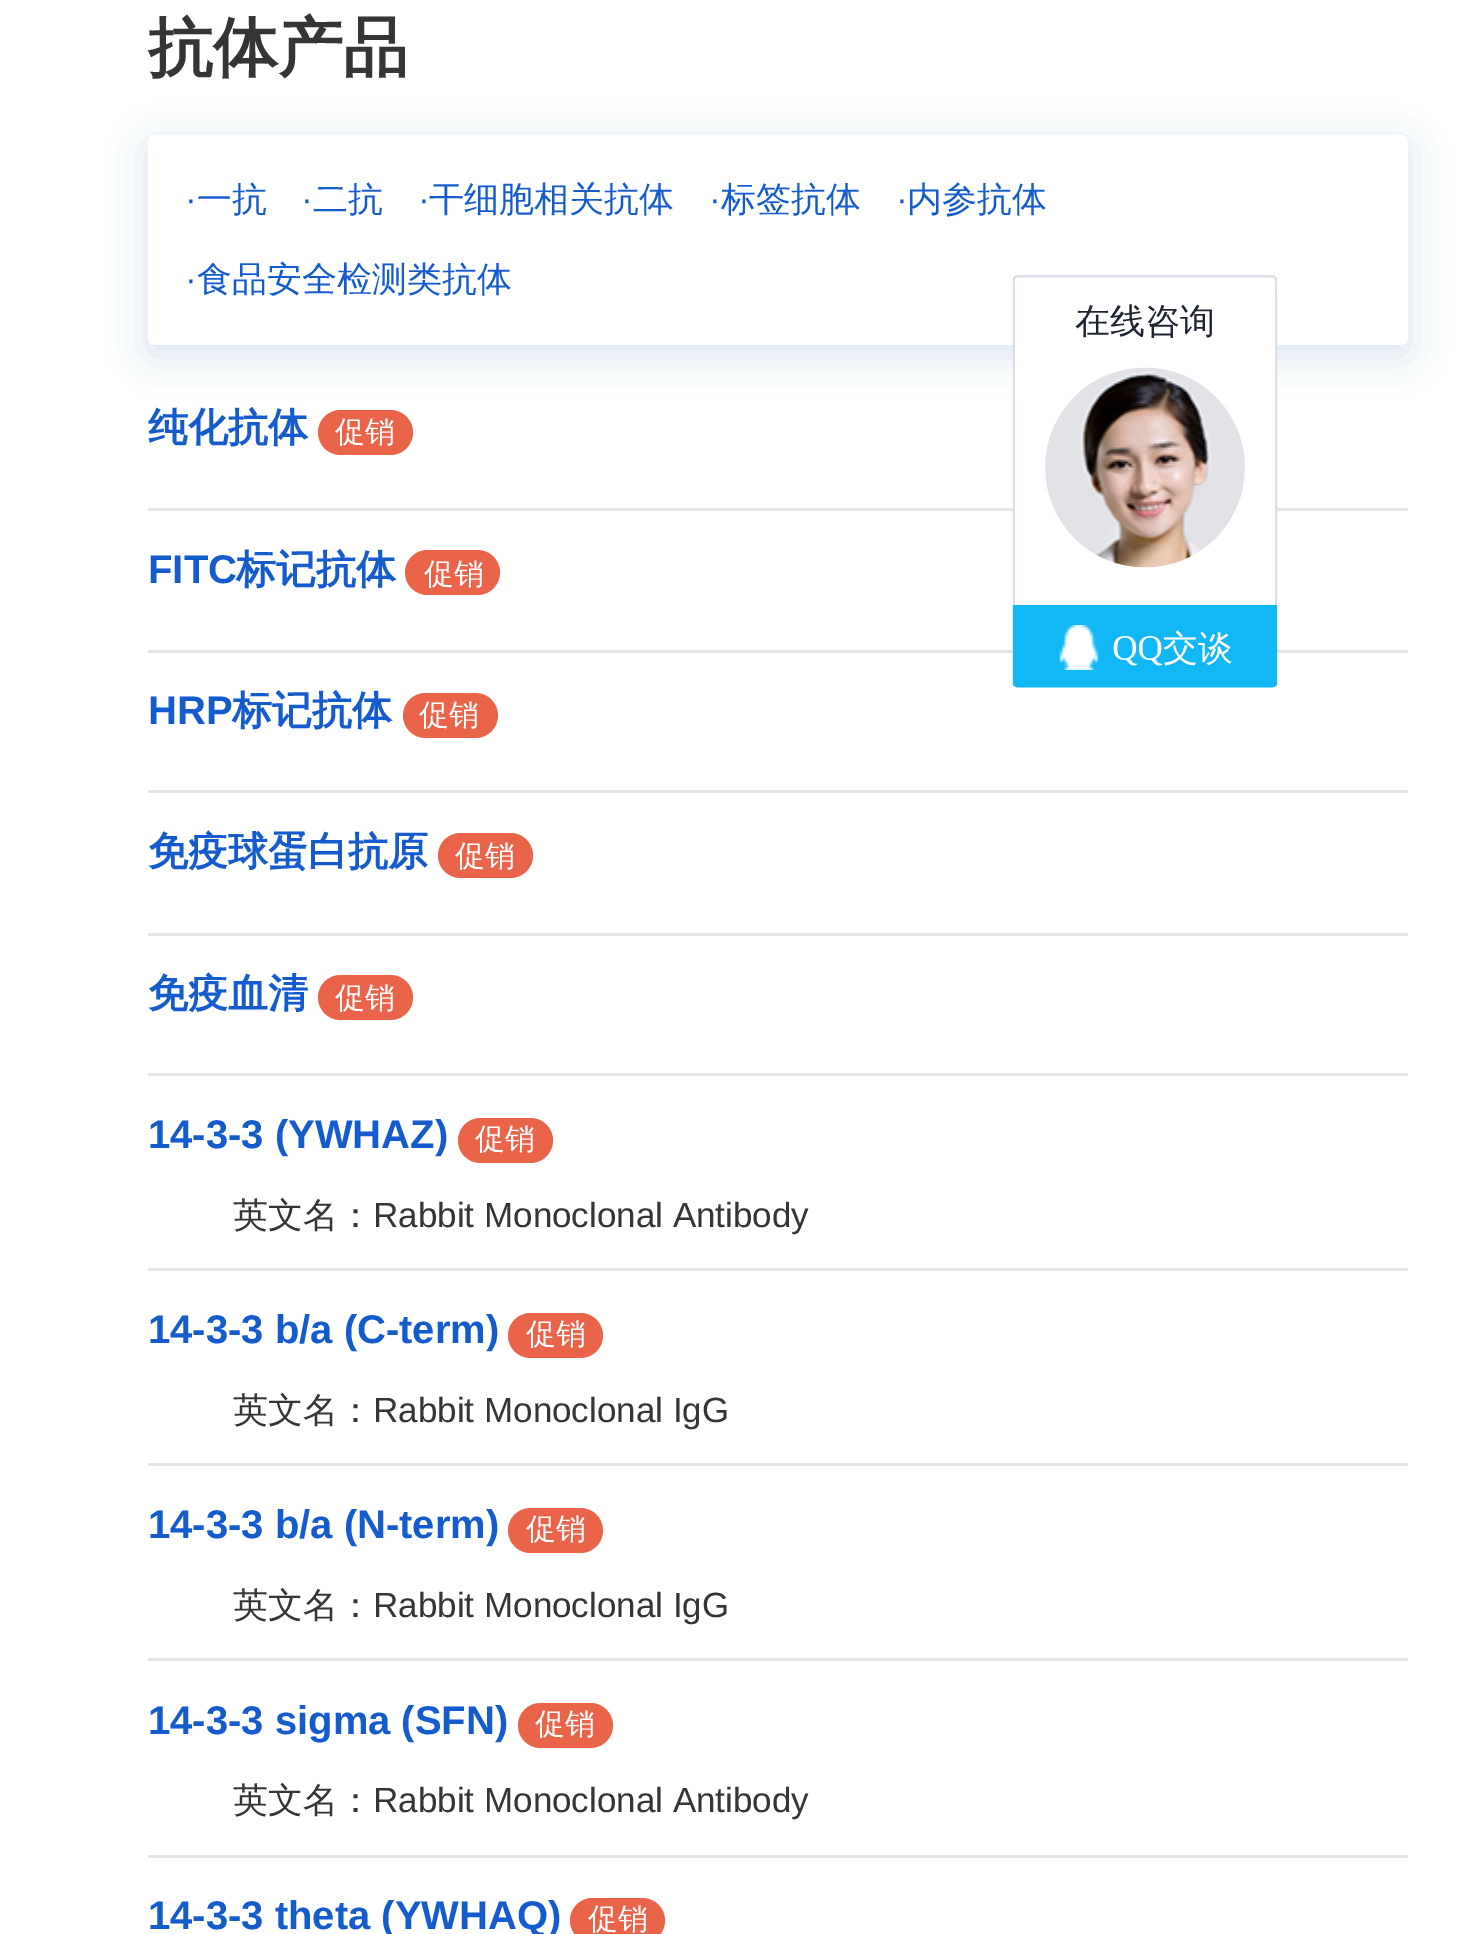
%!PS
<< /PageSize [1469 1934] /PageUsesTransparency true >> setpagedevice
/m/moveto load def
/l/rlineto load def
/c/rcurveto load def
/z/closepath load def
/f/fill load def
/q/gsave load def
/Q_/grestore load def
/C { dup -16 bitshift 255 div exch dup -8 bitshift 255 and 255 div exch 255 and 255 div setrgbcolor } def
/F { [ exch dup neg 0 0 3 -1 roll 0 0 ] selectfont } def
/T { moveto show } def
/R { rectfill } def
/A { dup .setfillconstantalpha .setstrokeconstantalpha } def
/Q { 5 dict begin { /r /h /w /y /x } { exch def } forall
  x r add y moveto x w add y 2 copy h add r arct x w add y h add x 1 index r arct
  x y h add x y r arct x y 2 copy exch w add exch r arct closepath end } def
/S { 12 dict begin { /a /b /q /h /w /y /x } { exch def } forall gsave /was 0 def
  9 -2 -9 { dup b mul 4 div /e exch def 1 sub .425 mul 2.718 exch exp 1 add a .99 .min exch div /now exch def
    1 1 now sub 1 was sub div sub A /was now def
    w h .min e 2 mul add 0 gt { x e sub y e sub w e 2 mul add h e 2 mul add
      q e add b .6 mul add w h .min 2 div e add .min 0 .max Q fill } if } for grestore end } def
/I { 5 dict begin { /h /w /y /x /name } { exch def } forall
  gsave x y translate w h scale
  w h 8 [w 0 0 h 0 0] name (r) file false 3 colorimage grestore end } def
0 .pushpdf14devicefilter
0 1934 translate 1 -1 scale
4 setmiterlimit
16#FFFFFF C
0 0 1469 1934 R
/WenQuanYiZenHei-Bold 65 F
16#353535 C
(抗体产品) 148 70 T
q
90 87 m 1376 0 l 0 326 l -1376 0 l z 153 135 m 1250 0 l 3 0 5 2 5 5 c 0 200 l 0 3 -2 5 -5 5 c -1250 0 l -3 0 -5 -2 -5 -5 c 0 -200 l 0 -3 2 -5 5 -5 c z eoclip newpath
16#3763AA C
148 145 1260 210 5 19 .2 S
Q_
/LiberationSans-Regular 35 F
16#145CCD C
(·) 185 211 T
/WenQuanYiZenHei-Medium 35 F
(一抗) 197 211 T
/LiberationSans-Regular 35 F
(·) 301 211 T
/WenQuanYiZenHei-Medium 35 F
(二抗) 313 211 T
/LiberationSans-Regular 35 F
(·) 418 211 T
/WenQuanYiZenHei-Medium 35 F
(干细胞相关抗体) 429 211 T
/LiberationSans-Regular 35 F
(·) 709 211 T
/WenQuanYiZenHei-Medium 35 F
(标签抗体) 721 211 T
/LiberationSans-Regular 35 F
(·) 896 211 T
/WenQuanYiZenHei-Medium 35 F
(内参抗体) 907 211 T
/LiberationSans-Regular 35 F
(·) 185 291 T
/WenQuanYiZenHei-Medium 35 F
(食品安全检测类抗体) 197 291 T
16#E5E5E5 C
148 508 1260 3 R
/WenQuanYiZenHei-Bold 40 F
16#145CCD C
(纯化抗体) 148 441 T
16#EA644A C
318 410 95 45 22.5 Q f
/WenQuanYiZenHei-Medium 30 F
16#FFFFFF C
(促销) 335 442 T
16#E5E5E5 C
148 650 1260 3 R
/LiberationSans-Bold 40 F
16#145CCD C
(FITC) 148 583 T
/WenQuanYiZenHei-Bold 40 F
(标记抗体) 236 583 T
16#EA644A C
405 550 95 45 22.5 Q f
/WenQuanYiZenHei-Medium 30 F
16#FFFFFF C
(促销) 424 584 T
16#E5E5E5 C
148 790 1260 3 R
/LiberationSans-Bold 40 F
16#145CCD C
(HRP) 148 724 T
/WenQuanYiZenHei-Bold 40 F
(标记抗体) 232 724 T
16#EA644A C
403 693 95 45 22.5 Q f
/WenQuanYiZenHei-Medium 30 F
16#FFFFFF C
(促销) 419 725 T
16#E5E5E5 C
148 933 1260 3 R
/WenQuanYiZenHei-Bold 40 F
16#145CCD C
(免疫球蛋白抗原) 148 865 T
16#EA644A C
438 833 95 45 22.5 Q f
/WenQuanYiZenHei-Medium 30 F
16#FFFFFF C
(促销) 455 866 T
16#E5E5E5 C
148 1073 1260 3 R
/WenQuanYiZenHei-Bold 40 F
16#145CCD C
(免疫血清) 148 1007 T
16#EA644A C
318 975 95 45 22.5 Q f
/WenQuanYiZenHei-Medium 30 F
16#FFFFFF C
(促销) 335 1008 T
16#E5E5E5 C
148 1268 1260 3 R
/LiberationSans-Bold 40 F
16#145CCD C
(14-3-3 \(YWHAZ\)) 148 1148 T
16#EA644A C
458 1118 95 45 22.5 Q f
/WenQuanYiZenHei-Medium 30 F
16#FFFFFF C
(促销) 475 1149 T
/WenQuanYiZenHei-Medium 35 F
16#353535 C
(英文名：) 233 1227 T
/LiberationSans-Regular 35 F
(Rabbit Monoclonal Antibody) 373 1227 T
16#E5E5E5 C
148 1463 1260 3 R
/LiberationSans-Bold 40 F
16#145CCD C
(14-3-3 b/a \(C-term\)) 148 1343 T
16#EA644A C
508 1313 95 45 22.5 Q f
/WenQuanYiZenHei-Medium 30 F
16#FFFFFF C
(促销) 526 1344 T
/WenQuanYiZenHei-Medium 35 F
16#353535 C
(英文名：) 233 1422 T
/LiberationSans-Regular 35 F
(Rabbit Monoclonal IgG) 373 1422 T
16#E5E5E5 C
148 1658 1260 3 R
/LiberationSans-Bold 40 F
16#145CCD C
(14-3-3 b/a \(N-term\)) 148 1538 T
16#EA644A C
508 1508 95 45 22.5 Q f
/WenQuanYiZenHei-Medium 30 F
16#FFFFFF C
(促销) 526 1539 T
/WenQuanYiZenHei-Medium 35 F
16#353535 C
(英文名：) 233 1617 T
/LiberationSans-Regular 35 F
(Rabbit Monoclonal IgG) 373 1617 T
16#E5E5E5 C
148 1855 1260 3 R
/LiberationSans-Bold 40 F
16#145CCD C
(14-3-3 sigma \(SFN\)) 148 1734 T
16#EA644A C
518 1703 95 45 22.5 Q f
/WenQuanYiZenHei-Medium 30 F
16#FFFFFF C
(促销) 535 1734 T
/WenQuanYiZenHei-Medium 35 F
16#353535 C
(英文名：) 233 1812 T
/LiberationSans-Regular 35 F
(Rabbit Monoclonal Antibody) 373 1812 T
/LiberationSans-Bold 40 F
16#145CCD C
(14-3-3 theta \(YWHAQ\)) 148 1929 T
16#EA644A C
570 1898 95 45 22.5 Q f
/WenQuanYiZenHei-Medium 30 F
16#FFFFFF C
(促销) 588 1929 T
(1.rgb) 1012 275 266 413 I
.poppdf14devicefilter showpage
